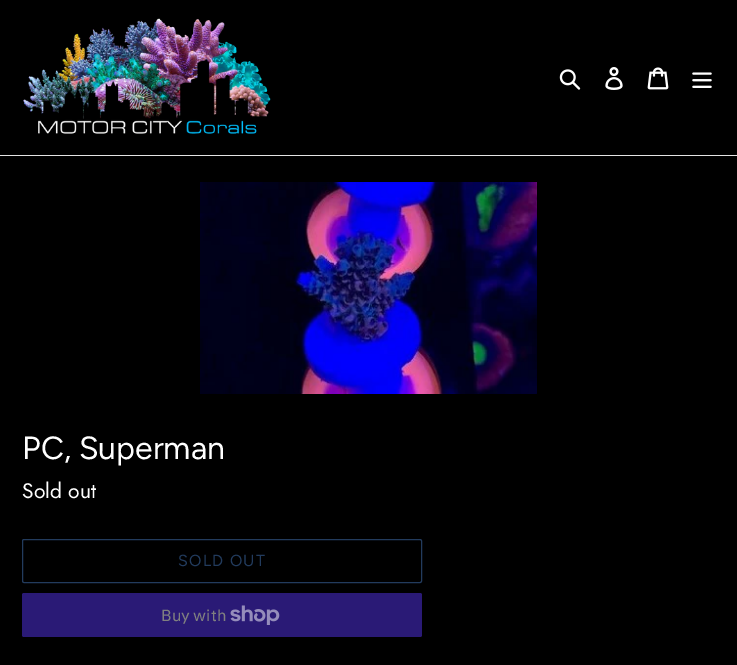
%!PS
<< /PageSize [737 665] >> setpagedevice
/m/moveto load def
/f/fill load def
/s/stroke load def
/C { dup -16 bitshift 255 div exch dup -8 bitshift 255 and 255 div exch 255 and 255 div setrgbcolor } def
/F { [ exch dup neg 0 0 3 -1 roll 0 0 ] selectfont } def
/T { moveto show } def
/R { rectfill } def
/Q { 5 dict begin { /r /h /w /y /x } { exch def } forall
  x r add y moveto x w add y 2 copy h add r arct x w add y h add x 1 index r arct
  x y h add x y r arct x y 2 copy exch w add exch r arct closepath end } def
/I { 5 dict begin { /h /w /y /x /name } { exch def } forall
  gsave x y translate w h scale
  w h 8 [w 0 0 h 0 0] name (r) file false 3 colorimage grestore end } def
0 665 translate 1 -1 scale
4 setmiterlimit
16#000000 C
0 0 737 665 R
16#E4E4E4 C
0 155 737 1 R
(1.rgb) 23 18 248 116 I
(2.rgb) 559 69 22 21 I
(3.rgb) 605 67 18 23 I
(4.rgb) 647 67 22 23 I
(5.rgb) 692 72 20 16 I
(6.rgb) 200 182 337 212 I
/Figtree-Regular 32 F
16#FFFFFF C
(PC, Superman) 22 459 T
/Jost-Regular 21 F
(Sold out) 22 498 T
16#223B5D C
22.5 539.5 399 43 1.5 Q s
/Figtree-Regular 16 F
178 566 m 1.25 0 (SOLD OUT) ashow
16#2A1A76 C
22 593 400 44 2 Q f
/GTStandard-Regular 16 F
16#808080 C
(Buy with) 161 621 T
(7.rgb) 230 605 50 20 I
showpage
